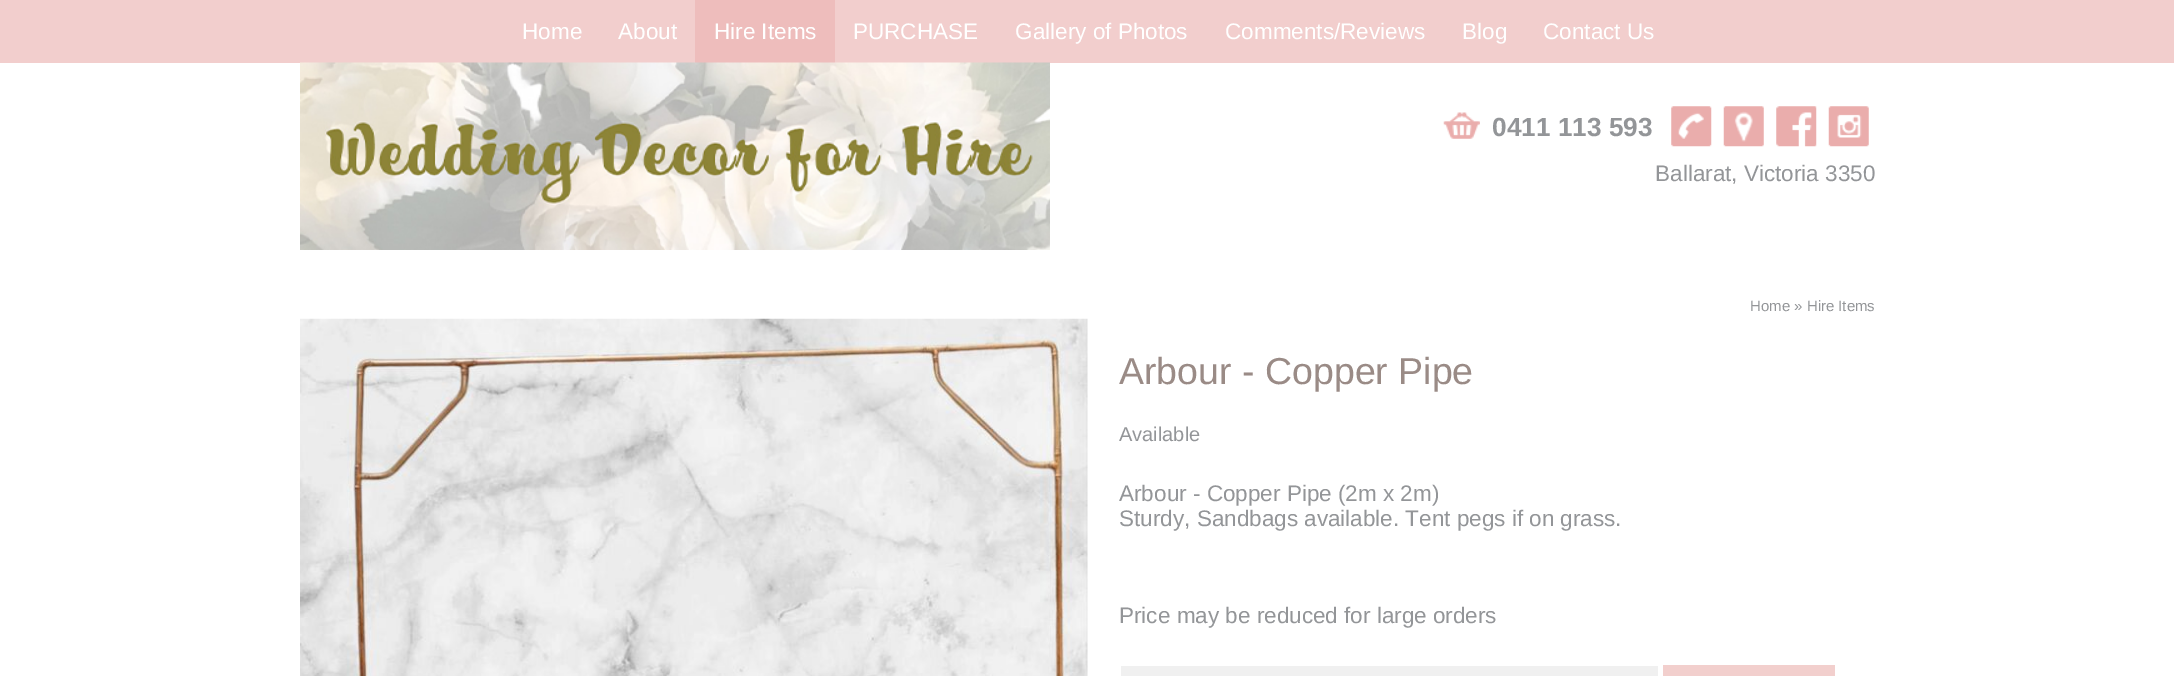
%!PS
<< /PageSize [2174 676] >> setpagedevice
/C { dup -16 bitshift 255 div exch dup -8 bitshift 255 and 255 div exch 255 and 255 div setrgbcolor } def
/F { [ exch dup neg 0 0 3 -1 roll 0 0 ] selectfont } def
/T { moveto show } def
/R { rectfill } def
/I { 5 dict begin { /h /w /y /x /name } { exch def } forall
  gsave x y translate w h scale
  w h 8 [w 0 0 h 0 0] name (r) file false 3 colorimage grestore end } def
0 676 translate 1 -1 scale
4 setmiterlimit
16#FFFFFF C
0 0 2174 676 R
16#F2CECD C
0 0 2174 63 R
/LiberationSans-Regular 22.5 F
16#FFFFFF C
(Home) 522 39 T
(About) 618 39 T
16#EEBDBC C
695 0 140 63 R
16#FFFFFF C
(Hire Items) 714 39 T
(PURCHASE) 853 39 T
(Gallery of Photos) 1015 39 T
(Comments/Reviews) 1225 39 T
(Blog) 1462 39 T
(Contact Us) 1543 39 T
(1.rgb) 300 62 750 188 I
(2.rgb) 1443 112 37 27 I
/LiberationSans-Bold 26.25 F
16#939598 C
(0411 113 593) 1492 136 T
(3.rgb) 1671 106 41 41 I
(4.rgb) 1723 106 41 41 I
(5.rgb) 1776 106 41 41 I
(6.rgb) 1828 106 41 41 I
/LiberationSans-Regular 22.5 F
(Ballarat, Victoria 3350) 1655 181 T
/LiberationSans-Regular 15 F
(Home » Hire Items) 1750 311 T
(7.rgb) 300 318 788 358 I
/LiberationSans-Regular 37.5 F
16#9A8B86 C
(Arbour - Copper Pipe) 1119 384 T
/LiberationSans-Regular 20 F
16#939598 C
(Available) 1119 441 T
/LiberationSans-Regular 22.5 F
(Arbour - Copper Pipe \(2m x 2m\)) 1119 501 T
(Sturdy, Sandbags available. Tent pegs if on grass.) 1119 526 T
(Price may be reduced for large orders) 1119 623 T
16#F0F0F0 C
1121 666 537 10 R
16#F2CFCD C
1663 665 172 11 R
showpage
